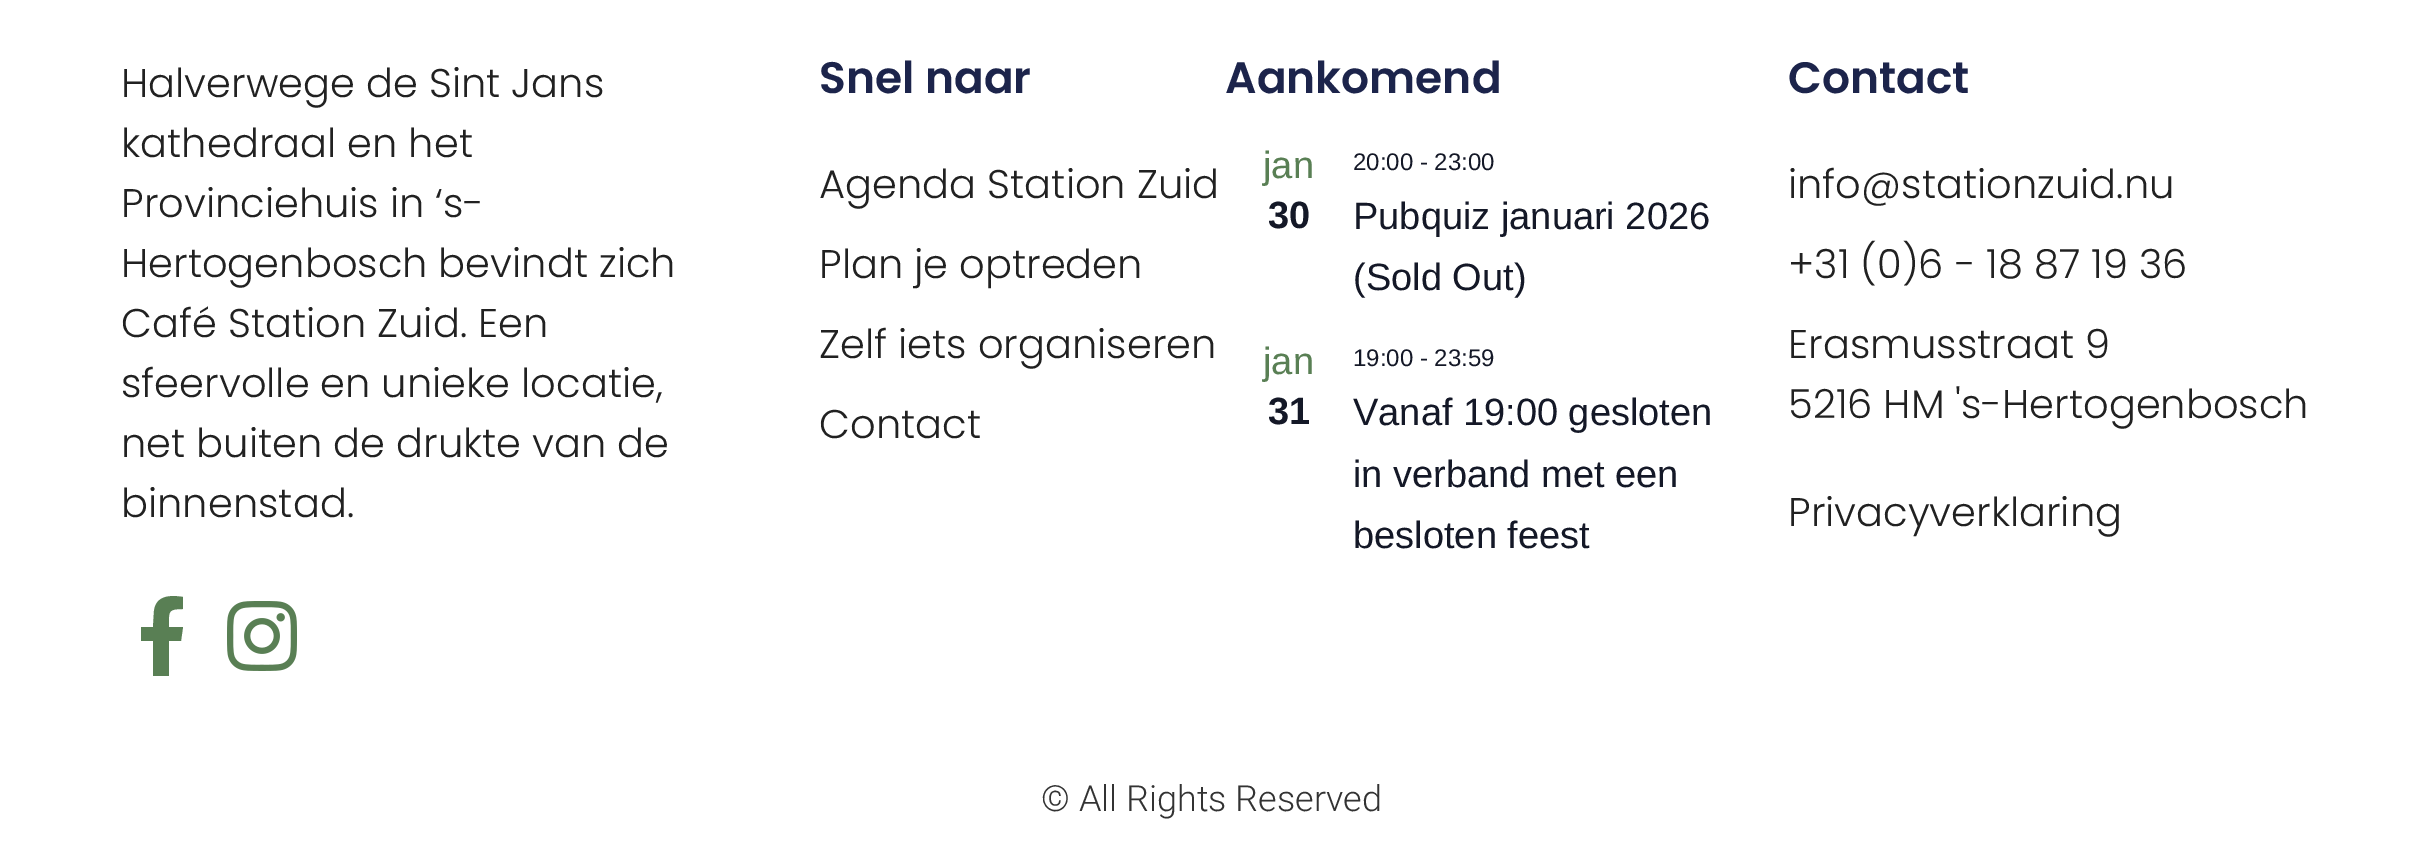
%!PS
<< /PageSize [2422 857] >> setpagedevice
/m/moveto load def
/l/rlineto load def
/c/rcurveto load def
/z/closepath load def
/f/fill load def
/C { dup -16 bitshift 255 div exch dup -8 bitshift 255 and 255 div exch 255 and 255 div setrgbcolor } def
/F { [ exch dup neg 0 0 3 -1 roll 0 0 ] selectfont } def
/T { moveto show } def
/R { rectfill } def
/I { 5 dict begin { /h /w /y /x /name } { exch def } forall
  gsave x y translate w h scale
  w h 8 [w 0 0 h 0 0] name (r) file false 3 colorimage grestore end } def
0 857 translate 1 -1 scale
4 setmiterlimit
16#FFFFFF C
0 0 2422 857 R
/Poppins-Light 40 F
16#212121 C
(Halverwege de Sint Jans) 121 97 T
(kathedraal en het) 121 157 T
(Provinciehuis in ‘s-) 121 217 T
(Hertogenbosch bevindt zich) 121 277 T
(Café Station Zuid. Een) 121 337 T
(sfeervolle en unieke locatie,) 121 397 T
(net buiten de drukte van de) 121 457 T
(binnenstad.) 121 517 T
16#597F54 C
181 641 m 2 -14 l -14 0 l 0 -15 -2 -18 14 -18 c 0 -12 l -12 -2 -27 -2 -29 14 c -1 16 l -12 0 l 0 14 l 12 0 l 0 35 l 16 0 l 0 -35 l z f
(1.rgb) 227 601 70 70 I
/Poppins-SemiBold 44 F
16#1C244B C
(Snel naar) 819 93 T
/Poppins-Light 40 F
16#212121 C
(Agenda Station Zuid) 819 198 T
(Plan je optreden) 819 278 T
(Zelf iets organiseren) 819 358 T
(Contact) 819 438 T
/Poppins-SemiBold 44 F
16#1C244B C
(Aankomend) 1225 93 T
/LiberationSans-Regular 38 F
16#597F54 C
(jan) 1263 178 T
/LiberationSans-Bold 38 F
16#141827 C
(30) 1268 228 T
/LiberationSans-Regular 24 F
(20:00 - 23:00) 1353 170 T
/LiberationSans-Regular 38 F
(Pubquiz januari 2026) 1353 229 T
(\(Sold Out\)) 1353 290 T
16#597F54 C
(jan) 1263 374 T
/LiberationSans-Bold 38 F
16#141827 C
(31) 1268 424 T
/LiberationSans-Regular 24 F
(19:00 - 23:59) 1353 366 T
/LiberationSans-Regular 38 F
(Vanaf 19:00 gesloten) 1353 425 T
(in verband met een) 1353 487 T
(besloten feest) 1353 548 T
/Poppins-SemiBold 44 F
16#1C244B C
(Contact) 1788 93 T
/Poppins-Light 40 F
16#212121 C
(info@stationzuid.nu) 1788 198 T
(+31 \(0\)6 - 18 87 19 36) 1788 278 T
(Erasmusstraat 9) 1788 358 T
(5216 HM 's-Hertogenbosch) 1788 418 T
(Privacyverklaring) 1788 526 T
/Roboto-Light 36 F
16#333333 C
(© All Rights Reserved) 1041 811 T
showpage
